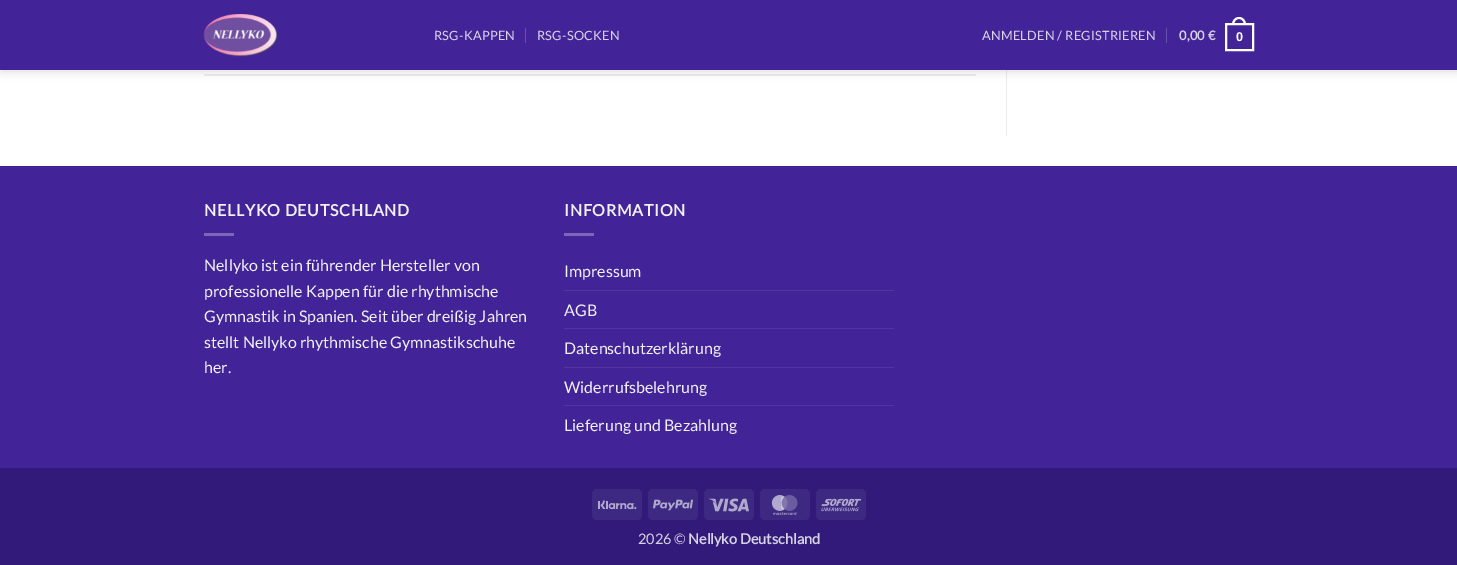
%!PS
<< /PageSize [1457 565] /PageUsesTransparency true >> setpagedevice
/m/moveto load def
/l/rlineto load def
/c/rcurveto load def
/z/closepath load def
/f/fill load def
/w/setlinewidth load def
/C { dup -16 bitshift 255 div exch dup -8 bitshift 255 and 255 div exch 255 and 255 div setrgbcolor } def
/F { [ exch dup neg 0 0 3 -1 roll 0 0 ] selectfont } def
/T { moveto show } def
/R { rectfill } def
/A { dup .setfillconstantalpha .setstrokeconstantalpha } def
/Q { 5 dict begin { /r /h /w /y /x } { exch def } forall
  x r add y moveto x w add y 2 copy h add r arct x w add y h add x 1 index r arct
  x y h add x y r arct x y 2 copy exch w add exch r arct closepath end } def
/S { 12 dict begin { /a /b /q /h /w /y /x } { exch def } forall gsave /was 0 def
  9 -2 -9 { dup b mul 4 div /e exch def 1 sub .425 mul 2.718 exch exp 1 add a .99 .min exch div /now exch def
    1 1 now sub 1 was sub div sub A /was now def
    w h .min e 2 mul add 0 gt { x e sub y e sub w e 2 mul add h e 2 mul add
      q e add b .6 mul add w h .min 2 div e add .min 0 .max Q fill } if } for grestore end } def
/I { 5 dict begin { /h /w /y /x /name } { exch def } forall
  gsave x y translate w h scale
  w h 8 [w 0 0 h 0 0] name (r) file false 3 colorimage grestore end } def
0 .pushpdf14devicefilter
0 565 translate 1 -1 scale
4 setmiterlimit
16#FFFFFF C
0 0 1457 565 R
16#ECECEC C
204 74 772 2 R
1006 70 1 66 R
16#000000 C
1 1 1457 70 0 5 .15 S
16#422498 C
0 0 1457 70 R
(1.rgb) 203 14 74 43 I
/Lato-Regular 12.75 F
16#D9D3EA C
434 40 m .25 0 (RSG-KAPPEN) ashow
16#6850AD C
525 28 1 15 R
16#D9D3EA C
537 40 m .25 0 (RSG-SOCKEN) ashow
982 40 m .25 0 (ANMELDEN / REGISTRIEREN) ashow
16#6850AD C
1166 28 1 15 R
/Lato-Bold 12.75 F
16#D9D3EA C
1179 40 m .25 0 (0,00 €) ashow
16#FFFFFF C
2 w
1226 24 27 26 rectstroke
1239 17 m 4.5 0 7 4 7 8 c -14 0 l 0 -4 2.5 -8 7 -8 c z 1239 19 m 3.5 0 5 3 5 6 c -10 0 l 0 -3 1.5 -6 5 -6 c z eofill
/LiberationSans-Bold 12.75 F
1236 41 m .25 0 (0) ashow
16#422498 C
0 167 1457 301 R
16#3F2290 C
0 166 1457 1 R
/Lato-Bold 16 F
16#F1F1F1 C
204 216 m .75 0 (NELLYKO DEUTSCHLAND) ashow
16#7B66B7 C
204 233 30 3 R
/Lato-Regular 16 F
16#F1F1F1 C
(Nellyko ist ein führender Hersteller von) 204 271 T
(professionelle Kappen für die rhythmische) 204 297 T
(Gymnastik in Spanien. Seit über dreißig Jahren) 204 322 T
(stellt Nellyko rhythmische Gymnastikschuhe) 204 348 T
(her.) 204 373 T
/Lato-Bold 16 F
564 216 m .75 0 (INFORMATION) ashow
16#7B66B7 C
564 233 30 3 R
/Lato-Regular 16 F
16#F1F1F1 C
(Impressum) 564 277 T
16#5136A0 C
564 290 330 1 R
16#F1F1F1 C
(AGB) 564 316 T
16#5136A0 C
564 328 330 1 R
16#F1F1F1 C
(Datenschutzerklärung) 564 354 T
16#5136A0 C
564 367 330 1 R
16#F1F1F1 C
(Widerrufsbelehrung) 564 393 T
16#5136A0 C
564 405 330 1 R
16#F1F1F1 C
(Lieferung und Bezahlung) 564 431 T
16#311A7A C
0 468 1457 97 R
16#3D2882 C
592 489 50 31 5 Q f
(2.rgb) 598 500 39 10 I
648 489 50 31 5 Q f
(3.rgb) 653 499 40 12 I
704 489 50 31 5 Q f
(4.rgb) 709 498 40 14 I
760 489 50 31 5 Q f
(5.rgb) 771 495 27 20 I
816 489 50 31 5 Q f
(6.rgb) 821 498 40 14 I
/Lato-Regular 14.5 F
16#D6D1E4 C
(2026 ©) 638 544 T
/Lato-Bold 14.5 F
(Nellyko Deutschland) 688 544 T
.poppdf14devicefilter showpage
